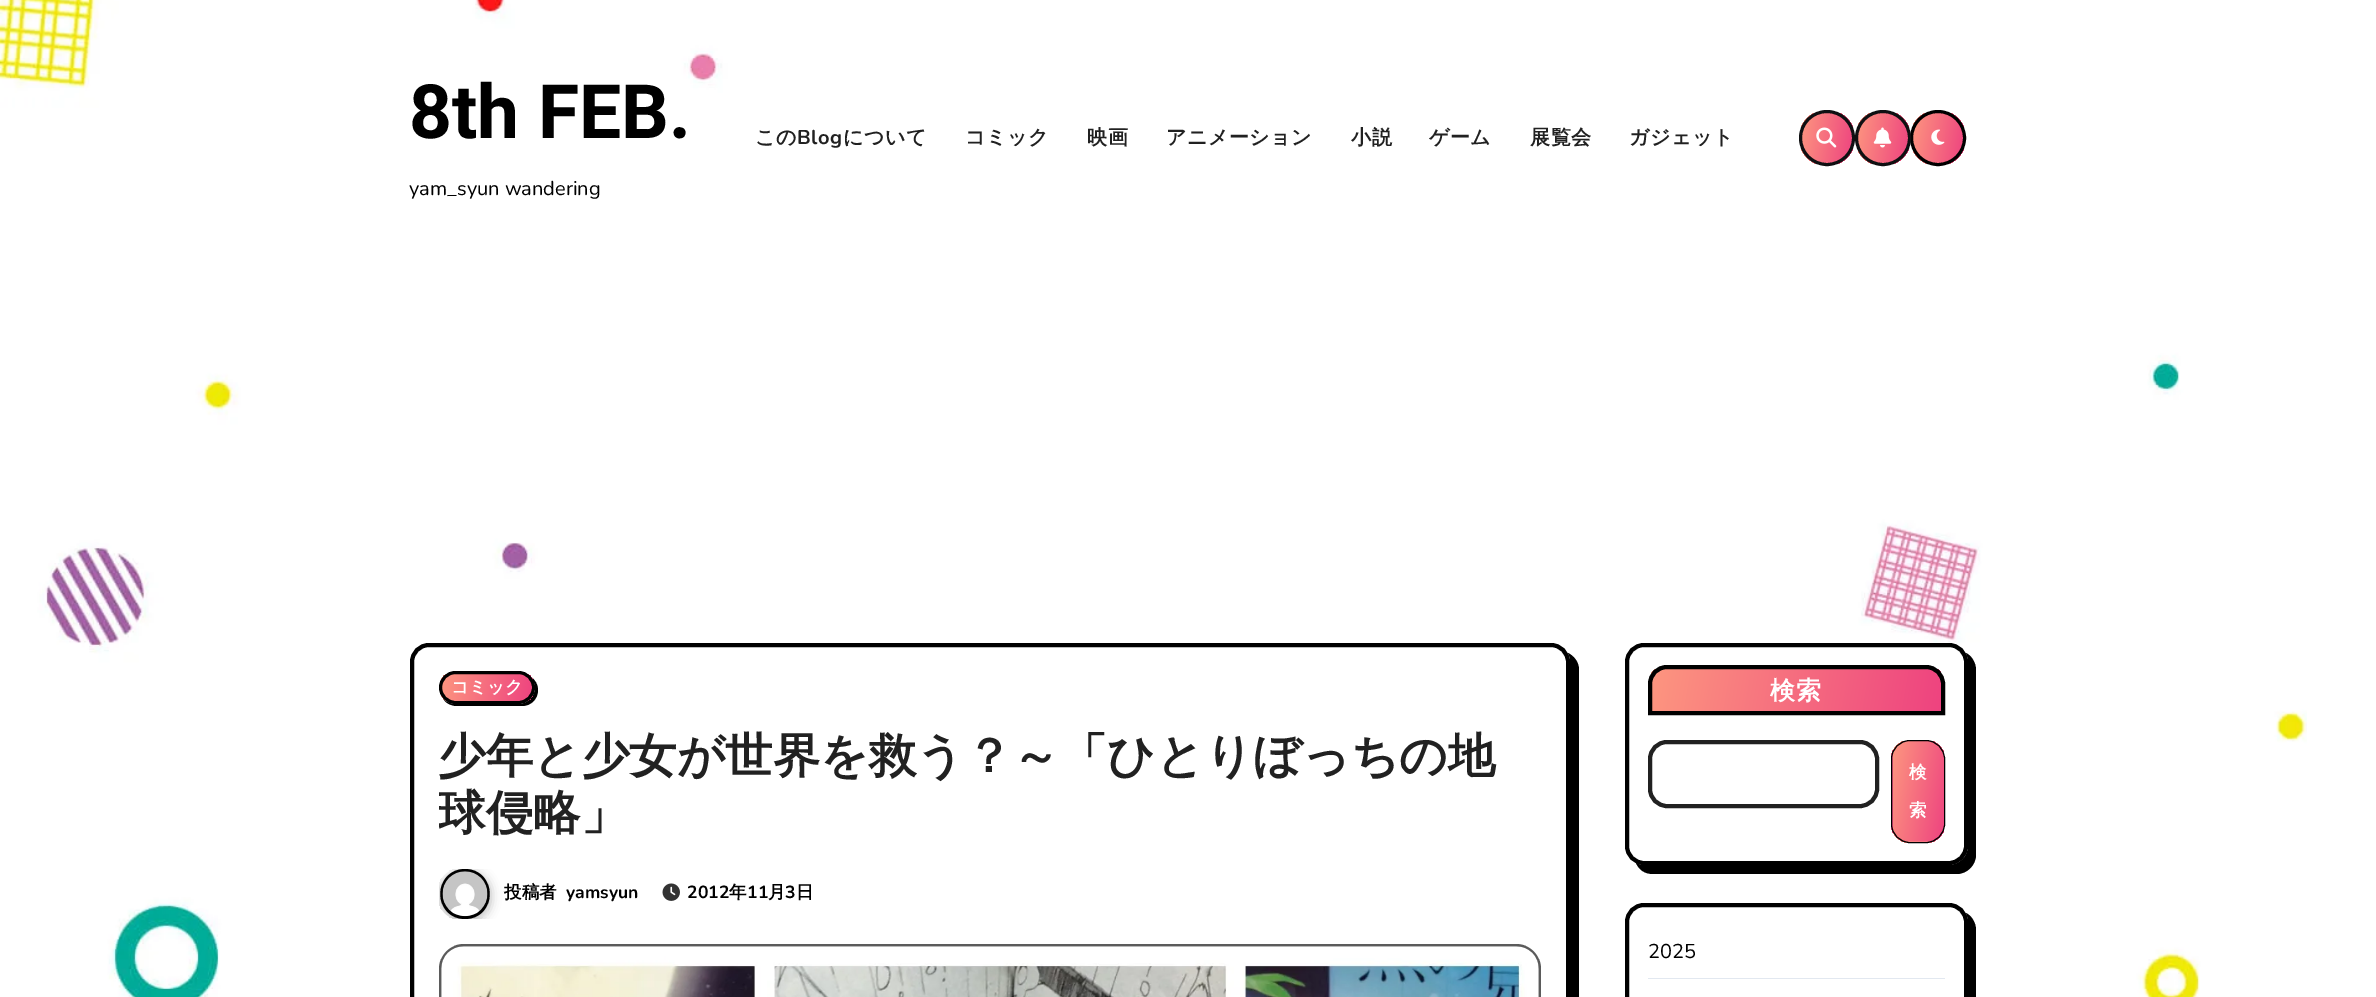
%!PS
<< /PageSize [2376 997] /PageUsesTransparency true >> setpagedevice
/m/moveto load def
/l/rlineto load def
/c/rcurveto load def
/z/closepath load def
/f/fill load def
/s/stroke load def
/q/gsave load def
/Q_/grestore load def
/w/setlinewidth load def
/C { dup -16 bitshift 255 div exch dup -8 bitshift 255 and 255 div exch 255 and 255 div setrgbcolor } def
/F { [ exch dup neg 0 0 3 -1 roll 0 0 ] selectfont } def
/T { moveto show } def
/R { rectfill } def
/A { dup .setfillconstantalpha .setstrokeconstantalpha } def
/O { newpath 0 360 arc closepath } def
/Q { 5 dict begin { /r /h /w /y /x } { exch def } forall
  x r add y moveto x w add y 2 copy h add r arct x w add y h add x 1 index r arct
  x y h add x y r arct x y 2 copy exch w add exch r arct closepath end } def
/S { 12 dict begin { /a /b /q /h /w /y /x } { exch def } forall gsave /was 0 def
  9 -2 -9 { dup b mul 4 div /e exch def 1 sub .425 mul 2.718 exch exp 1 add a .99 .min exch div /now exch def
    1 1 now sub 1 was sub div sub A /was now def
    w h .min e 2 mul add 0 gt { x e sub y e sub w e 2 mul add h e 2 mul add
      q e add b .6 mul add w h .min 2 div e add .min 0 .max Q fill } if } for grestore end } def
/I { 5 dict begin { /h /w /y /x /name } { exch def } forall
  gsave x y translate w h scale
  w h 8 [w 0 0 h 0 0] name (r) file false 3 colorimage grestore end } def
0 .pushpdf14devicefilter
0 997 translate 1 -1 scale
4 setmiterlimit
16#FFFFFF C
0 0 2376 997 R
(1.rgb) 0 0 2307 997 I
/Heebo-Bold 75 F
16#000000 C
(8th FEB.) 409 138 T
/Nunito-Regular 20 F
(yam_syun wandering) 409 195 T
/WenQuanYiZenHei-Bold 20 F
16#212121 C
755 144 m .5 0 (この) ashow
/Nunito-Bold 20 F
797 144 m .5 0 (Blog) ashow
/WenQuanYiZenHei-Bold 20 F
843 144 m .5 0 (について) ashow
965 144 m .5 0 (コミック) ashow
1087 144 m .5 0 (映画) ashow
1166 144 m .5 0 (アニメーション) ashow
1351 144 m .5 0 (小説) ashow
1429 144 m .5 0 (ゲーム) ashow
1530 144 m .5 0 (展覧会) ashow
1629 144 m .5 0 (ガジェット) ashow
q
1799 110 56 56 28 Q clip newpath
q 1801 113 m 52 0 l 0 51 l -52 0 l z clip newpath
<< /ShadingType 2 /ColorSpace /DeviceRGB /Coords [1798 133 1856 143] /Extend [true true] /Function << /FunctionType 2 /Domain [0 1] /C0 [.992 .588 .498] /C1 [.933 .263 .498] /N 1 >> >> shfill Q_
Q_
16#0F1012 C
3 w
1827 138 26.5 O s
(2.rgb) 1816 127 21 21 I
q
1855 110 56 56 28 Q clip newpath
q 1858 113 m 51 0 l 0 51 l -51 0 l z clip newpath
<< /ShadingType 2 /ColorSpace /DeviceRGB /Coords [1854 133 1912 143] /Extend [true true] /Function << /FunctionType 2 /Domain [0 1] /C0 [.992 .588 .498] /C1 [.933 .263 .498] /N 1 >> >> shfill Q_
Q_
q
1910 110 56 56 28 Q clip newpath
q 1913 113 m 51 0 l 0 51 l -51 0 l z clip newpath
<< /ShadingType 2 /ColorSpace /DeviceRGB /Coords [1909 133 1967 143] /Extend [true true] /Function << /FunctionType 2 /Domain [0 1] /C0 [.992 .588 .498] /C1 [.933 .263 .498] /N 1 >> >> shfill Q_
Q_
16#000000 C
1938 138 26.5 O s
16#0F1012 C
1883 138 26.5 O s
(3.rgb) 1873 127 19 21 I
(4.rgb) 1931 129 14 16 I
16#000000 C
421 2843 m 3 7 9 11 17 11 c 1122 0 l 10 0 19 -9 19 -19 c 0 -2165 l 0 -8 -5 -14 -11 -17 c 1 2 2 5 2 8 c 0 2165 l 0 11 -8 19 -19 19 c -1122 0 l -3 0 -6 -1 -8 -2 c z f
16#FFFFFF C
412 645 1156 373 17 Q q f Q_
16#000000 C
4 w
s
444 700 m 3 4 8 6 13 6 c 65 0 l 9 0 16 -7 16 -16 c 0 -6 -3 -10 -7 -13 c 2 3 4 6 4 11 c 0 8 -7 16 -16 16 c -64 0 l -4 0 -8 -2 -11 -4 c z f
q
439 671 96 33 16.5 Q clip newpath
q 441 674 m 92 0 l 0 27 l -92 0 l z clip newpath
<< /ShadingType 2 /ColorSpace /DeviceRGB /Coords [440 679 533 696] /Extend [true true] /Function << /FunctionType 2 /Domain [0 1] /C0 [.992 .588 .498] /C1 [.933 .263 .498] /N 1 >> >> shfill Q_
Q_
3 w
440.5 672.5 93 30 15 Q s
/WenQuanYiZenHei-Bold 17.5 F
16#FFFFFF C
(コミック) 451 693 T
/WenQuanYiZenHei-Bold 47.5 F
16#212121 C
(少年と少女が世界を救う？～「ひとりぼっちの地) 438 772 T
q
439 729 1102 115 rectclip
(球侵略」) 438 829 T
Q_
q
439 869 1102 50 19 Q clip newpath
439 870 52 53 26 5 .3 S
Q_
16#000000 C
465 869 m -33 0 -33 50 0 50 c 33 0 33 -50 0 -50 c z f
(5.rgb) 442 871 46 46 I
/WenQuanYiZenHei-Bold 17.5 F
(投稿者) 504 898 T
/Nunito-Bold 17.5 F
(yamsyun) 566 898 T
(6.rgb) 662 883 18 18 I
(2012) 687 898 T
/WenQuanYiZenHei-Bold 17.5 F
(年) 729 898 T
/Nunito-Bold 17.5 F
(11) 747 898 T
/WenQuanYiZenHei-Bold 17.5 F
(月) 768 898 T
/Nunito-Bold 17.5 F
(3) 785 898 T
/WenQuanYiZenHei-Bold 17.5 F
(日) 796 898 T
16#5B5B5B C
464 944 m 1052 0 l 14 0 25 11 25 25 c 0 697 l 0 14 -11 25 -25 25 c -1052 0 l -14 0 -25 -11 -25 -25 c 0 -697 l 0 -14 11 -25 25 -25 c z f
(7.rgb) 441 946 1098 51 I
16#000000 C
1636 863 m 3 7 9 11 17 11 c 304 0 l 10 0 19 -9 19 -19 c 0 -185 l 0 -7 -4 -14 -10 -17 c 1 3 2 5 2 8 c 0 185 l 0 11 -9 19 -19 19 c -305 0 l -3 0 -6 -1 -8 -2 c z f
16#FFFFFF C
1627 645 339 218 17 Q q f Q_
16#000000 C
4 w
s
q
1667 665 m 259 0 l 10.5 0 19 8.5 19 19 c 0 31 l -297 0 l 0 -31 l 0 -10.5 8.5 -19 19 -19 c z clip newpath
q 1651 669 m 290 0 l 0 42 l -290 0 l z clip newpath
<< /ShadingType 2 /ColorSpace /DeviceRGB /Coords [1652 665 1941 715] /Extend [true true] /Function << /FunctionType 2 /Domain [0 1] /C0 [.992 .588 .498] /C1 [.933 .263 .498] /N 1 >> >> shfill Q_
Q_
1667 667 m 259 0 l 9.5 0 17 7.5 17 17 c 0 29 l -293 0 l 0 -29 l 0 -9.5 7.5 -17 17 -17 c z s
/WenQuanYiZenHei-Bold 25 F
16#FFFFFF C
1770 699 m 1 0 (検索) ashow
16#212121 C
1650 742 227 64 17 Q s
q
1891 740 54 103 19 Q clip newpath
q 1891 750 m 2 0 l 0 91 l -2 0 l z clip newpath
<< /ShadingType 2 /ColorSpace /DeviceRGB /Coords [1833 785 1900 797] /Extend [true true] /Function << /FunctionType 2 /Domain [0 1] /C0 [.992 .588 .498] /C1 [.933 .263 .498] /N 1 >> >> shfill Q_
q 1893 741 m 51 0 l 0 100 l -51 0 l z clip newpath
<< /ShadingType 2 /ColorSpace /DeviceRGB /Coords [1885 785 1952 797] /Extend [true true] /Function << /FunctionType 2 /Domain [0 1] /C0 [.992 .588 .498] /C1 [.933 .263 .498] /N 1 >> >> shfill Q_
q 1893 841 m 42 0 l 0 2 l -42 0 l z clip newpath
<< /ShadingType 2 /ColorSpace /DeviceRGB /Coords [1885 885 1952 897] /Extend [true true] /Function << /FunctionType 2 /Domain [0 1] /C0 [.992 .588 .498] /C1 [.933 .263 .498] /N 1 >> >> shfill Q_
Q_
16#000000 C
1 w
1891.5 740.5 53 102 18.5 Q s
/WenQuanYiZenHei-Bold 17.5 F
16#FFFFFF C
(検) 1909 778 T
(索) 1909 816 T
16#000000 C
1636 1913 m 3 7 9 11 17 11 c 304 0 l 10 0 19 -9 19 -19 c 0 -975 l 0 -7 -4 -14 -10 -17 c 1 3 2 5 2 8 c 0 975 l 0 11 -9 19 -19 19 c -305 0 l -3 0 -6 -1 -8 -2 c z f
16#FFFFFF C
1627 905 339 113 17 Q q f Q_
16#000000 C
4 w
s
16#E2E8F0 C
1648 978 297 1 R
/Nunito-Regular 20 F
16#000000 C
(2025) 1648 958 T
.poppdf14devicefilter showpage
